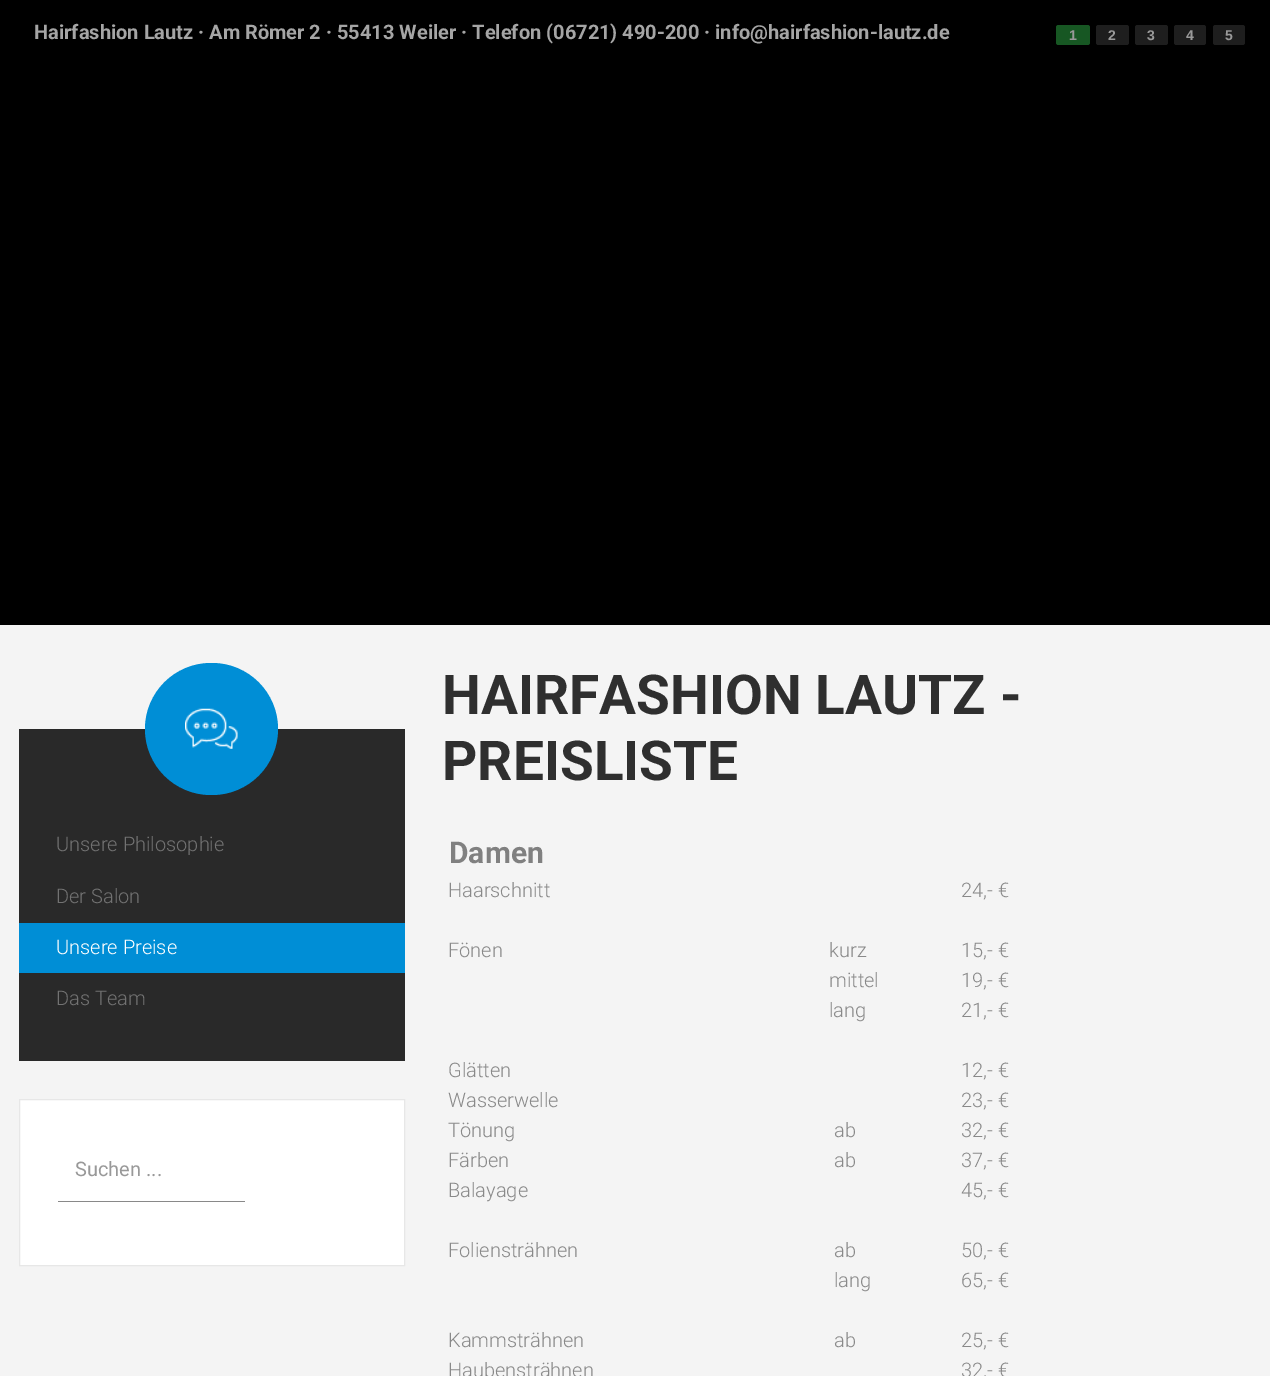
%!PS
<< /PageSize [1270 1376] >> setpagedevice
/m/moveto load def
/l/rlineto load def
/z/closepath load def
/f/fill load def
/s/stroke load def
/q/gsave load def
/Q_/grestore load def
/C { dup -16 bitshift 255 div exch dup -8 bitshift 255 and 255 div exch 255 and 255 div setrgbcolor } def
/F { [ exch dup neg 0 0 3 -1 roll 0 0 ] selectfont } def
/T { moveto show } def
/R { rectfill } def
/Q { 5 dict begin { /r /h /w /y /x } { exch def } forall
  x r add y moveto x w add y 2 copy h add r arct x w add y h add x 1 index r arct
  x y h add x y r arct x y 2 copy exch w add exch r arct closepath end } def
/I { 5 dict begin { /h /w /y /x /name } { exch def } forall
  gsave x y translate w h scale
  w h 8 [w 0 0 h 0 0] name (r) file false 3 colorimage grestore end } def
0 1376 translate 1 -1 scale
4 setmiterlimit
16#F4F4F4 C
0 0 1270 1376 R
16#000000 C
0 0 1270 625 R
/Roboto-Bold 20 F
16#A5A5A5 C
(Hairfashion Lautz · Am Römer 2 · 55413 Weiler · Telefon \(06721\) 490-200 · info@hairfashion-lautz.de) 34 39 T
16#175723 C
1056 25 34 20 2.5 Q f
/LiberationSans-Bold 14 F
16#999999 C
(1) 1069 40 T
16#1E1E1E C
1096 25 33 20 2.5 Q f
16#999999 C
(2) 1108 40 T
16#1E1E1E C
1135 25 33 20 2.5 Q f
16#999999 C
(3) 1147 40 T
16#1E1E1E C
1174 25 32 20 2.5 Q f
16#999999 C
(4) 1186 40 T
16#1E1E1E C
1213 25 32 20 2.5 Q f
16#999999 C
(5) 1225 40 T
16#292929 C
19 729 386 332 R
16#008ED6 C
145 663 133 132 66 Q f
(1.rgb) 185 708 53 41 I
/Roboto-Light 20 F
16#727272 C
(Unsere Philosophie) 56 851 T
(Der Salon) 56 903 T
16#008ED6 C
19 923 386 50 R
16#FFFFFF C
(Unsere Preise) 56 954 T
16#727272 C
(Das Team) 56 1005 T
16#FFFFFF C
19.5 1099.5 m 385 0 l 0 166 l -385 0 l z q f Q_
16#E7E7E7 C
s
16#898989 C
58 1201 187 1 R
/Roboto-Regular 20 F
16#999999 C
(Suchen ...) 75 1176 T
/Roboto-Bold 55 F
16#2F2F2F C
(HAIRFASHION LAUTZ -) 442 714 T
(PREISLISTE) 442 780 T
/Roboto-Bold 30 F
16#808080 C
(Damen) 449 863 T
/Roboto-Light 20 F
16#898989 C
(Haarschnitt) 448 897 T
(24,- €) 961 897 T
(Fönen) 448 957 T
(kurz) 829 957 T
(15,- €) 961 957 T
(mittel) 829 987 T
(19,- €) 961 987 T
(lang) 829 1017 T
(21,- €) 961 1017 T
(Glätten) 448 1077 T
(12,- €) 961 1077 T
(Wasserwelle) 448 1107 T
(23,- €) 961 1107 T
(Tönung) 448 1137 T
(ab) 834 1137 T
(32,- €) 961 1137 T
(Färben) 448 1167 T
(ab) 834 1167 T
(37,- €) 961 1167 T
(Balayage) 448 1197 T
(45,- €) 961 1197 T
(Foliensträhnen) 448 1257 T
(ab) 834 1257 T
(50,- €) 961 1257 T
(lang) 834 1287 T
(65,- €) 961 1287 T
(Kammsträhnen) 448 1347 T
(ab) 834 1347 T
(25,- €) 961 1347 T
(Haubensträhnen) 448 1377 T
(32,- €) 961 1377 T
showpage
